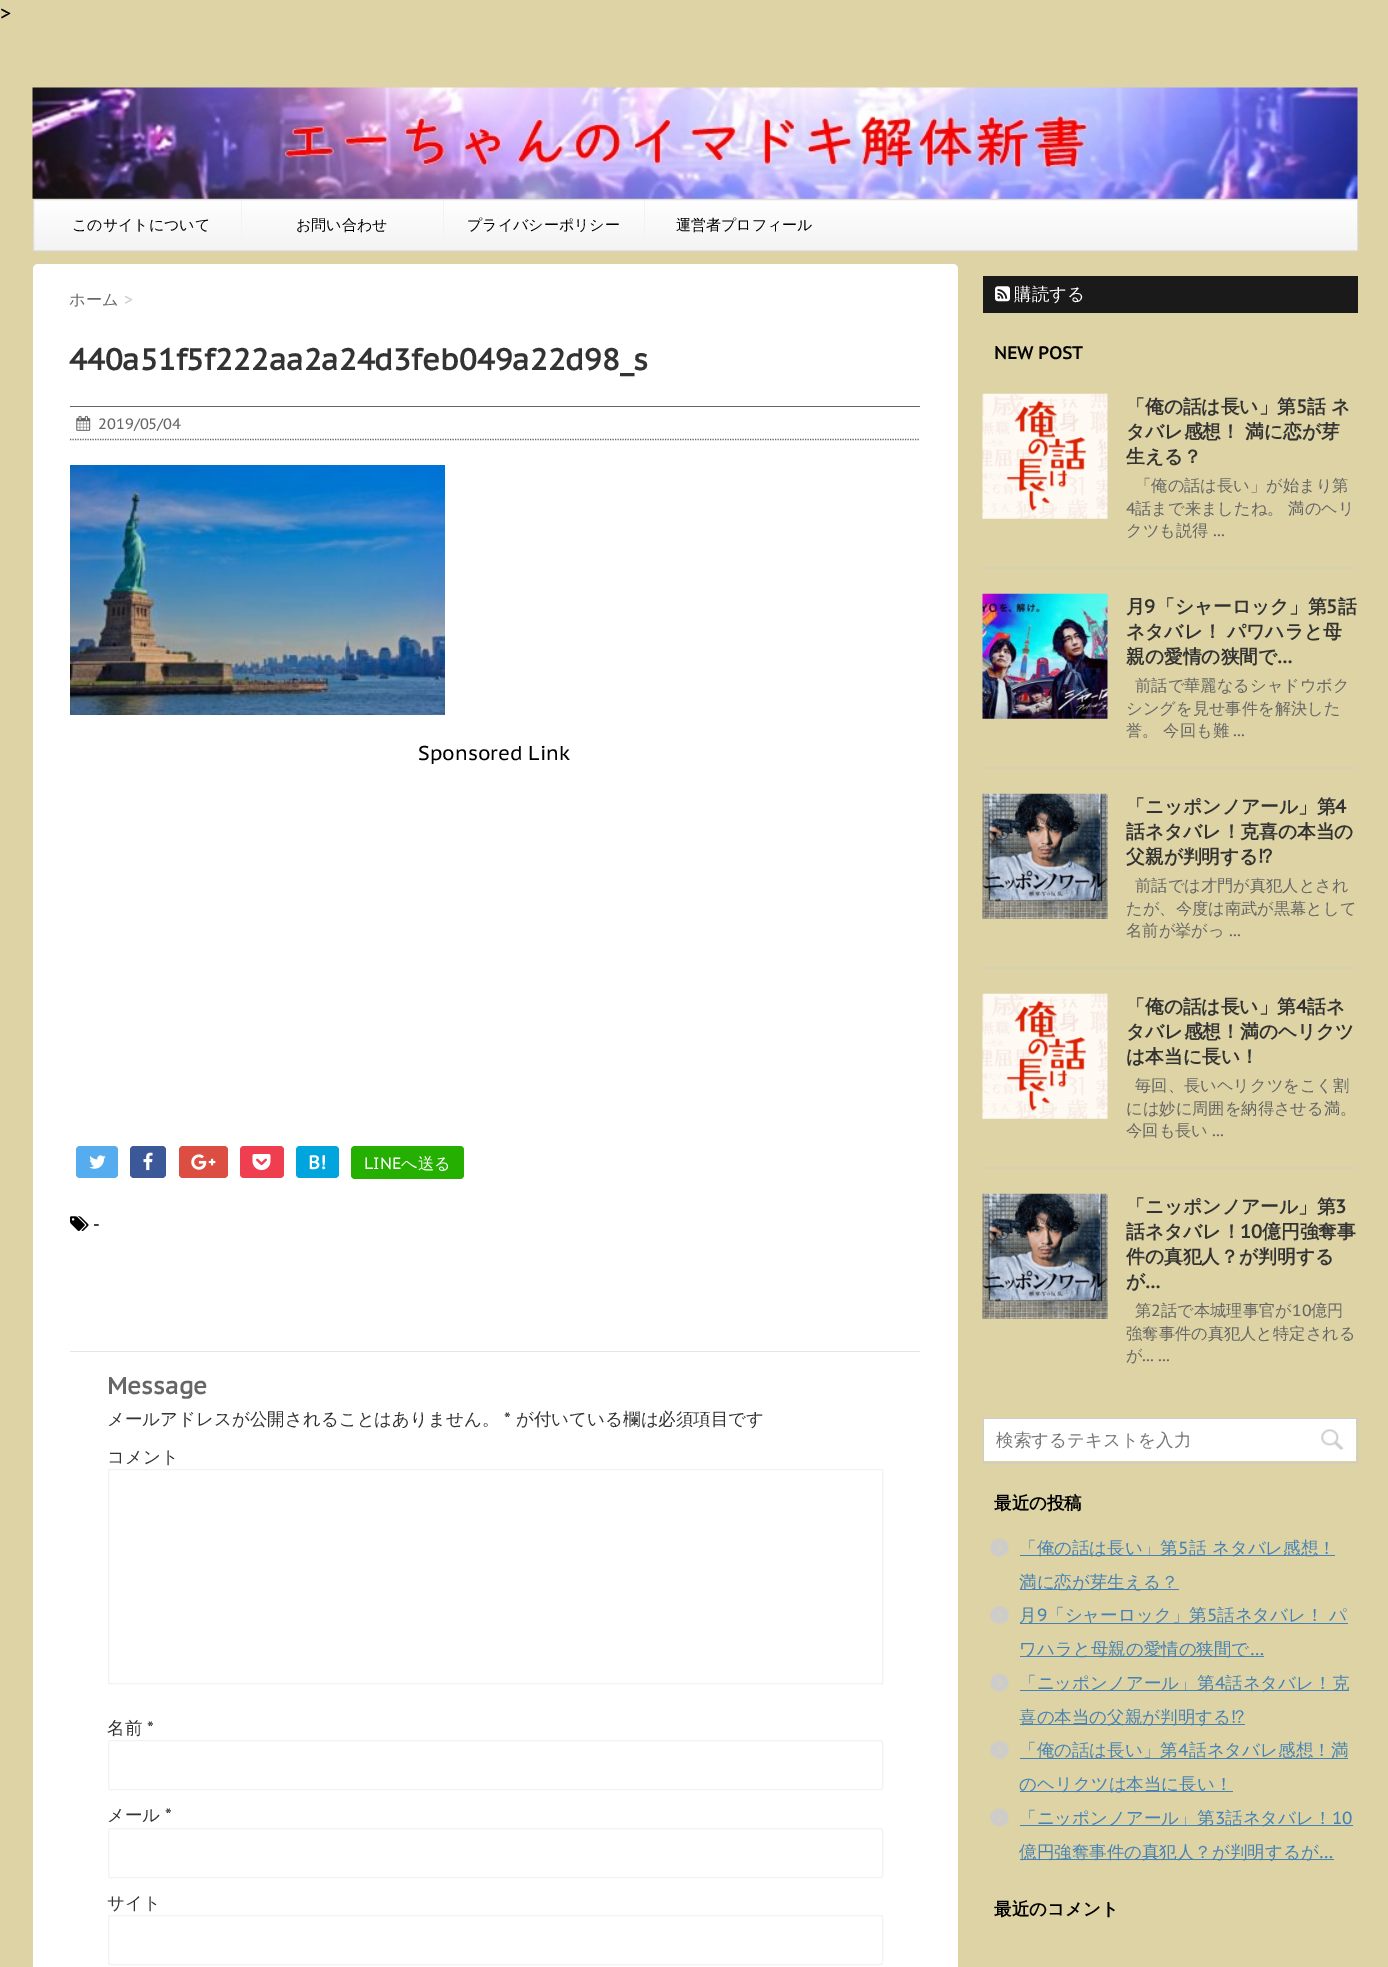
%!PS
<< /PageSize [1388 1967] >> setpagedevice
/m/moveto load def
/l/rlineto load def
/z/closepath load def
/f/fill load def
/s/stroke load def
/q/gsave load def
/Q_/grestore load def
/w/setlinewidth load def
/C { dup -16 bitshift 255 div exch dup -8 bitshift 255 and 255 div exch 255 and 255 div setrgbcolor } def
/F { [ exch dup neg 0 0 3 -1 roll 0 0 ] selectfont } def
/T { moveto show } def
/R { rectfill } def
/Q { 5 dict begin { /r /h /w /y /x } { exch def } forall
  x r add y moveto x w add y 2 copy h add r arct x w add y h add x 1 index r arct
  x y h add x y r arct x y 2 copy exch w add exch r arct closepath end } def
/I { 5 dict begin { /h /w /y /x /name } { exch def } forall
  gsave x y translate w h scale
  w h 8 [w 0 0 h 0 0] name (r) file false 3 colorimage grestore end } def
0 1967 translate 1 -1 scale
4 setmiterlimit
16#DDD3A4 C
0 0 1388 1967 R
/PTSansCaption-Regular 20 F
16#000000 C
(>) 0 20 T
(1.rgb) 32 87 1326 112 I
q 34 200 m 1323 0 l 0 50 l -1323 0 l z clip newpath
<< /ShadingType 2 /ColorSpace /DeviceRGB /Coords [695 200 695 250] /Extend [true true] /Function << /FunctionType 2 /Domain [0 1] /C0 [1 1 1] /C1 [.953 .953 .953] /N 1 >> >> shfill Q_
16#E0DEDE C
33.5 199.5 1324 51 .5 Q s
16#F3F3F3 C
241 200 1 40 R
/WenQuanYiZenHei-Medium 15 F
16#000000 C
(このサイトについて) 72 230 T
16#F3F3F3 C
443 200 1 40 R
16#000000 C
(お問い合わせ) 296 230 T
16#F3F3F3 C
644 200 1 40 R
16#000000 C
(プライバシーポリシー) 467 230 T
(運営者プロフィール) 676 230 T
16#FFFFFF C
33 264 925 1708 5 Q f
/WenQuanYiZenHei-Medium 16.25 F
16#666666 C
(ホーム) 69 305 T
/PTSansCaption-Regular 16.25 F
16#CCCCCC C
(>) 124 305 T
/PTSansCaption-Bold 30 F
16#333333 C
(440a51f5f222aa2a24d3feb049a22d98_s) 69 370 T
16#666666 C
70 406 850 1 R
1.2 w
[1.25 1.25] 0 setdash
70 439.5 m 850 0 l s
(2.rgb) 76 415 15 16 I
/PTSansCaption-Regular 15 F
(2019/05/04) 98 429 T
(3.rgb) 70 465 375 250 I
/PTSansCaption-Regular 20 F
16#000000 C
(Sponsored Link) 418 760 T
16#55ACEE C
76 1146 42 32 4 Q f
(4.rgb) 89 1155 17 14 I
16#3B5998 C
130 1146 36 32 4 Q f
(5.rgb) 143 1152 10 19 I
16#DC4E41 C
179 1146 49 32 4 Q f
(6.rgb) 191 1154 25 16 I
16#F03E51 C
240 1146 44 32 4 Q f
(7.rgb) 252 1154 19 17 I
16#00A5DE C
296 1146 43 32 4 Q f
/PTSansCaption-Bold 18.75 F
16#FFFFFF C
(B!) 308 1169 T
16#25AF00 C
351 1146 113 33 4 Q f
/PTSansCaption-Regular 16.25 F
16#FFFFFF C
(LINE) 364 1169 T
/WenQuanYiZenHei-Medium 16.25 F
(へ送る) 401 1169 T
(8.rgb) 70 1216 19 15 I
/PTSansCaption-Regular 17.5 F
16#000000 C
(-) 93 1230 T
16#E6E6E6 C
70 1351 850 1 R
/PTSansCaption-Bold 23.5 F
16#666666 C
(Message) 107 1394 T
/WenQuanYiZenHei-Medium 17.5 F
16#333333 C
(メールアドレスが公開されることはありません。) 107 1425 T
/PTSansCaption-Regular 17.5 F
(*) 504 1425 T
/WenQuanYiZenHei-Medium 17.5 F
(が付いている欄は必須項目です) 516 1425 T
(コメント) 107 1463 T
16#F2F2F2 C
1 w
[] 0 setdash
108.5 1469.5 774 214 rectstroke
16#333333 C
(名前) 107 1734 T
/PTSansCaption-Regular 17.5 F
(*) 147 1734 T
16#F2F2F2 C
108.5 1740.5 774 49 2 Q s
/WenQuanYiZenHei-Medium 17.5 F
16#333333 C
(メール) 107 1821 T
/PTSansCaption-Regular 17.5 F
(*) 165 1821 T
16#F2F2F2 C
108.5 1828.5 774 49 2 Q s
/WenQuanYiZenHei-Medium 17.5 F
16#333333 C
(サイト) 107 1909 T
16#F2F2F2 C
108.5 1915.5 774 49 2 Q s
16#1A1A1A C
983 276 375 37 R
(9.rgb) 995 286 15 16 I
16#FFFFFF C
(購読する) 1014 300 T
/PTSansCaption-Bold 17.5 F
16#000000 C
(NEW POST) 994 359 T
16#CCCCCC C
1.2 w
[1.25 1.25] 0 setdash
982.5 568 m 375 0 l s
(10.rgb) 982 393 126 126 I
/WenQuanYiZenHei-Bold 18.75 F
16#333333 C
(「俺の話は長い」第) 1126 413 T
/PTSansCaption-Bold 18.75 F
(5) 1296 413 T
/WenQuanYiZenHei-Bold 18.75 F
(話 ネ) 1307 413 T
(タバレ感想！ 満に恋が芽) 1126 438 T
(生える？) 1126 463 T
/WenQuanYiZenHei-Medium 16.25 F
16#666666 C
(「俺の話は長い」が始まり第) 1135 491 T
/PTSansCaption-Regular 16.25 F
(4) 1126 514 T
/WenQuanYiZenHei-Medium 16.25 F
(話まで来ましたね。 満のヘリ) 1135 514 T
(クツも説得) 1126 536 T
/PTSansCaption-Regular 16.25 F
(...) 1213 536 T
16#CCCCCC C
982.5 768 m 375 0 l s
(11.rgb) 982 593 126 126 I
/WenQuanYiZenHei-Bold 18.75 F
16#333333 C
(月) 1126 613 T
/PTSansCaption-Bold 18.75 F
(9) 1144 613 T
/WenQuanYiZenHei-Bold 18.75 F
(「シャーロック」第) 1156 613 T
/PTSansCaption-Bold 18.75 F
(5) 1326 613 T
/WenQuanYiZenHei-Bold 18.75 F
(話) 1338 613 T
(ネタバレ！ パワハラと母) 1126 638 T
(親の愛情の狭間で) 1126 663 T
/PTSansCaption-Bold 18.75 F
(…) 1277 663 T
/WenQuanYiZenHei-Medium 16.25 F
16#666666 C
(前話で華麗なるシャドウボク) 1135 691 T
(シングを見せ事件を解決した) 1126 714 T
(誉。 今回も難) 1126 736 T
/PTSansCaption-Regular 16.25 F
(...) 1233 736 T
16#CCCCCC C
982.5 968 m 375 0 l s
(12.rgb) 982 793 126 126 I
/WenQuanYiZenHei-Bold 18.75 F
16#333333 C
(「ニッポンノアール」第) 1126 813 T
/PTSansCaption-Bold 18.75 F
(4) 1335 813 T
/WenQuanYiZenHei-Bold 18.75 F
(話ネタバレ！克喜の本当の) 1126 838 T
(父親が判明する) 1126 863 T
/IPAPGothic-Bold 18.75 F
(⁉) 1258 863 T
/WenQuanYiZenHei-Medium 16.25 F
16#666666 C
(前話では才門が真犯人とされ) 1135 891 T
(たが、今度は南武が黒幕として) 1126 914 T
(名前が挙がっ) 1126 936 T
/PTSansCaption-Regular 16.25 F
(...) 1229 936 T
16#CCCCCC C
982.5 1168 m 375 0 l s
(13.rgb) 982 993 126 126 I
/WenQuanYiZenHei-Bold 18.75 F
16#333333 C
(「俺の話は長い」第) 1126 1013 T
/PTSansCaption-Bold 18.75 F
(4) 1296 1013 T
/WenQuanYiZenHei-Bold 18.75 F
(話ネ) 1307 1013 T
(タバレ感想！満のヘリクツ) 1126 1038 T
(は本当に長い！) 1126 1063 T
/WenQuanYiZenHei-Medium 16.25 F
16#666666 C
(毎回、長いヘリクツをこく割) 1135 1091 T
(には妙に周囲を納得させる満。) 1126 1114 T
(今回も長い) 1126 1136 T
/PTSansCaption-Regular 16.25 F
(...) 1212 1136 T
(14.rgb) 982 1193 126 126 I
/WenQuanYiZenHei-Bold 18.75 F
16#333333 C
(「ニッポンノアール」第) 1126 1213 T
/PTSansCaption-Bold 18.75 F
(3) 1335 1213 T
/WenQuanYiZenHei-Bold 18.75 F
(話ネタバレ！) 1126 1238 T
/PTSansCaption-Bold 18.75 F
(10) 1240 1238 T
/WenQuanYiZenHei-Bold 18.75 F
(億円強奪事) 1262 1238 T
(件の真犯人？が判明する) 1126 1263 T
(が) 1126 1288 T
/PTSansCaption-Bold 18.75 F
(…) 1145 1288 T
/WenQuanYiZenHei-Medium 16.25 F
16#666666 C
(第) 1135 1316 T
/PTSansCaption-Regular 16.25 F
(2) 1151 1316 T
/WenQuanYiZenHei-Medium 16.25 F
(話で本城理事官が) 1161 1316 T
/PTSansCaption-Regular 16.25 F
(10) 1292 1316 T
/WenQuanYiZenHei-Medium 16.25 F
(億円) 1311 1316 T
(強奪事件の真犯人と特定される) 1126 1339 T
(が) 1126 1361 T
/PTSansCaption-Regular 16.25 F
(... ...) 1142 1361 T
16#CCCCCC C
1 w
[] 0 setdash
983.5 1418.5 374 44 rectstroke
16#FFFFFF C
984 1419 372 42 R
/WenQuanYiZenHei-Medium 17.5 F
16#757575 C
(検索するテキストを入力) 996 1446 T
(15.rgb) 1321 1429 23 21 I
/WenQuanYiZenHei-Bold 17.5 F
16#000000 C
(最近の投稿) 994 1509 T
(16.rgb) 990 1538 19 19 I
16#4682B4 C
1020 1555 315 1 R
/WenQuanYiZenHei-Medium 17.5 F
(「俺の話は長い」第) 1019 1554 T
/PTSansCaption-Regular 17.5 F
(5) 1178 1554 T
/WenQuanYiZenHei-Medium 17.5 F
(話 ネタバレ感想！) 1189 1554 T
1020 1589 159 1 R
(満に恋が芽生える？) 1019 1588 T
(17.rgb) 990 1606 19 18 I
1020 1623 328 1 R
(月) 1019 1621 T
/PTSansCaption-Regular 17.5 F
(9) 1037 1621 T
/WenQuanYiZenHei-Medium 17.5 F
(「シャーロック」第) 1047 1621 T
/PTSansCaption-Regular 17.5 F
(5) 1207 1621 T
/WenQuanYiZenHei-Medium 17.5 F
(話ネタバレ！ パ) 1217 1621 T
1020 1656 244 1 R
(ワハラと母親の愛情の狭間で) 1019 1655 T
/PTSansCaption-Regular 17.5 F
(…) 1250 1655 T
(16.rgb) 990 1673 19 19 I
1020 1690 329 1 R
/WenQuanYiZenHei-Medium 17.5 F
(「ニッポンノアール」第) 1019 1689 T
/PTSansCaption-Regular 17.5 F
(4) 1215 1689 T
/WenQuanYiZenHei-Medium 17.5 F
(話ネタバレ！克) 1225 1689 T
1020 1724 225 1 R
(喜の本当の父親が判明する) 1019 1723 T
/IPAPGothic-Regular 17.5 F
(⁉) 1231 1723 T
(17.rgb) 990 1741 19 18 I
1020 1758 328 1 R
/WenQuanYiZenHei-Medium 17.5 F
(「俺の話は長い」第) 1019 1756 T
/PTSansCaption-Regular 17.5 F
(4) 1178 1756 T
/WenQuanYiZenHei-Medium 17.5 F
(話ネタバレ感想！満) 1189 1756 T
1020 1791 213 1 R
(のヘリクツは本当に長い！) 1019 1790 T
(16.rgb) 990 1808 19 19 I
1020 1825 333 1 R
(「ニッポンノアール」第) 1019 1824 T
/PTSansCaption-Regular 17.5 F
(3) 1215 1824 T
/WenQuanYiZenHei-Medium 17.5 F
(話ネタバレ！) 1225 1824 T
/PTSansCaption-Regular 17.5 F
(10) 1332 1824 T
1020 1859 314 1 R
/WenQuanYiZenHei-Medium 17.5 F
(億円強奪事件の真犯人？が判明するが) 1019 1858 T
/PTSansCaption-Regular 17.5 F
(…) 1319 1858 T
/WenQuanYiZenHei-Bold 17.5 F
16#000000 C
(最近のコメント) 994 1915 T
showpage
